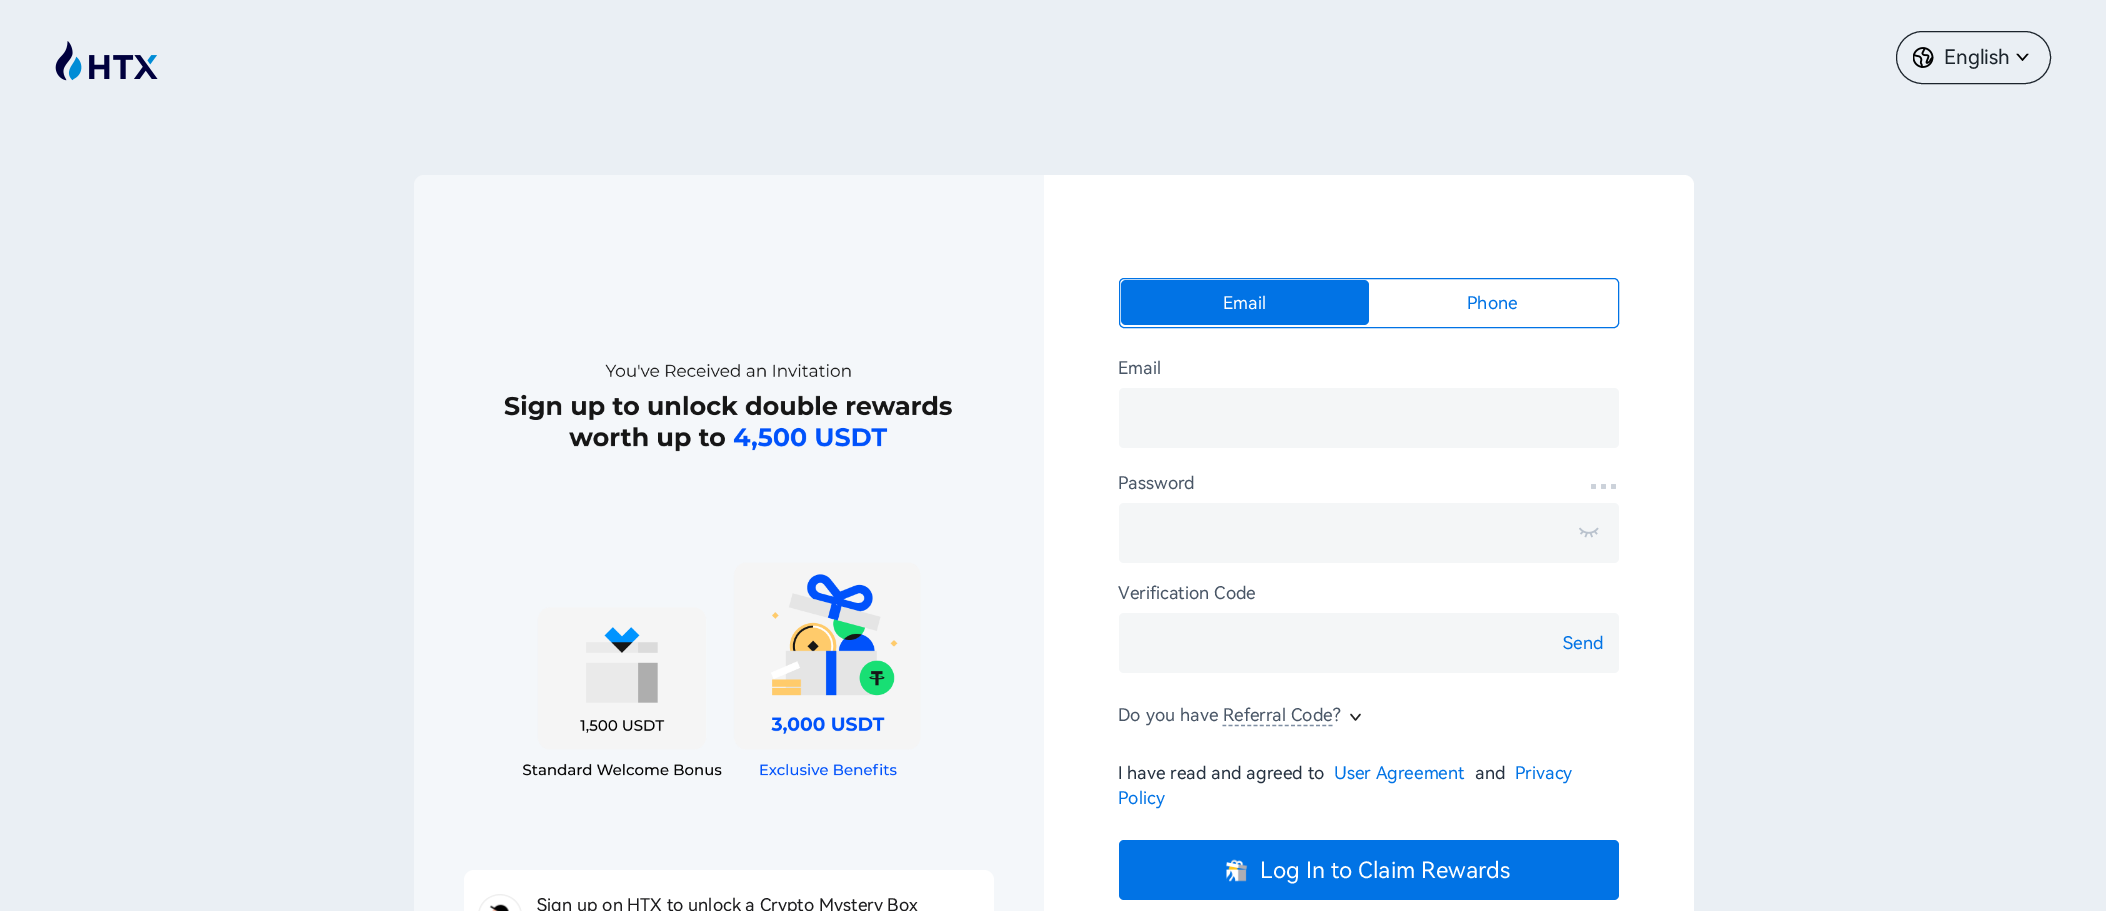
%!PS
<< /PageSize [2106 911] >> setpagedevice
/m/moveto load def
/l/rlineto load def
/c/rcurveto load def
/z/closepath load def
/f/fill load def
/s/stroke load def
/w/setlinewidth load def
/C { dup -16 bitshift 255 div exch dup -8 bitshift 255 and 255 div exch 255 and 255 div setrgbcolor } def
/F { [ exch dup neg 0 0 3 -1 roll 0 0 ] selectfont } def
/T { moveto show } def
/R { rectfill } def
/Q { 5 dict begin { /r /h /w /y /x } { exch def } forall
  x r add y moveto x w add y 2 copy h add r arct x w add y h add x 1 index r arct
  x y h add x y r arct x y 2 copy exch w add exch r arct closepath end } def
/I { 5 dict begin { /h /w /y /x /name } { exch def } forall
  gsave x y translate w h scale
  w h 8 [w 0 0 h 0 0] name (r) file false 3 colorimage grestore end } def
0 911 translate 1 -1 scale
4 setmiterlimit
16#EAEFF4 C
0 0 2106 911 R
(1.rgb) 55 41 103 40 I
16#1C242C C
1896.5 31.5 154 52 26 Q s
(2.rgb) 1913 47 21 21 I
/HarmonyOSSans-Regular 20 F
(English) 1944 64 T
(3.rgb) 2016 53 13 8 I
16#FFFFFF C
1044 175 m 640 0 l 5.5 0 10 4.5 10 10 c 0 726 l 0 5.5 -4.5 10 -10 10 c -640 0 l z f
16#0173E5 C
1119.5 278.5 499 49 4.5 Q s
1121 280 248 45 5 Q f
/HarmonyOSSans-Regular 17.5 F
16#FFFFFF C
(Email) 1223 309 T
16#0173E5 C
(Phone) 1467 309 T
16#495666 C
(Email) 1118 374 T
16#F4F6F7 C
1119 388 500 60 5 Q f
16#495666 C
(Password) 1118 489 T
16#CCD2DA C
1591 484 5 5 1 Q f
1601 484 5 5 1 Q f
1611 484 5 5 1 Q f
16#F4F6F7 C
1119 503 500 60 5 Q f
(4.rgb) 1579 527 20 11 I
16#495666 C
(Verification Code) 1118 599 T
16#F4F6F7 C
1119 613 500 60 5 Q f
16#0173E5 C
(Send) 1563 649 T
16#495666 C
(Do you have Referral Code?) 1118 721 T
16#7F8FA4 C
1.2 w
[3.75 2.5] 0 setdash
1222.5 725.5 m 110 0 l s
16#222222 C
1.4 w
1 setlinecap
1 setlinejoin
[] 0 setdash
1351 714.5 m 4.5 5.5 l 4.5 -5.5 l s
16#263241 C
(I have read and agreed to) 1118 779 T
16#0173E5 C
(User Agreement) 1334 779 T
16#263241 C
(and) 1475 779 T
16#0173E5 C
(Privacy) 1515 779 T
(Policy) 1118 804 T
1119 840 500 60 5 Q f
(5.rgb) 1226 859 22 23 I
/HarmonyOSSans-Regular 22.5 F
16#FFFFFF C
(Log In to Claim Rewards) 1260 878 T
16#F4F7FA C
424 175 m 620 0 l 0 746 l -620 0 l -5.5 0 -10 -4.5 -10 -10 c 0 -726 l 0 -5.5 4.5 -10 10 -10 c z f
(6.rgb) 504 364 448 412 I
16#FFFFFF C
464 870 530 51 10 Q f
(7.rgb) 478 894 44 17 I
/HarmonyOSSans-Regular 17.5 F
16#1C1C1E C
(Sign up on HTX to unlock a Crypto Mystery Box) 537 911 T
showpage
